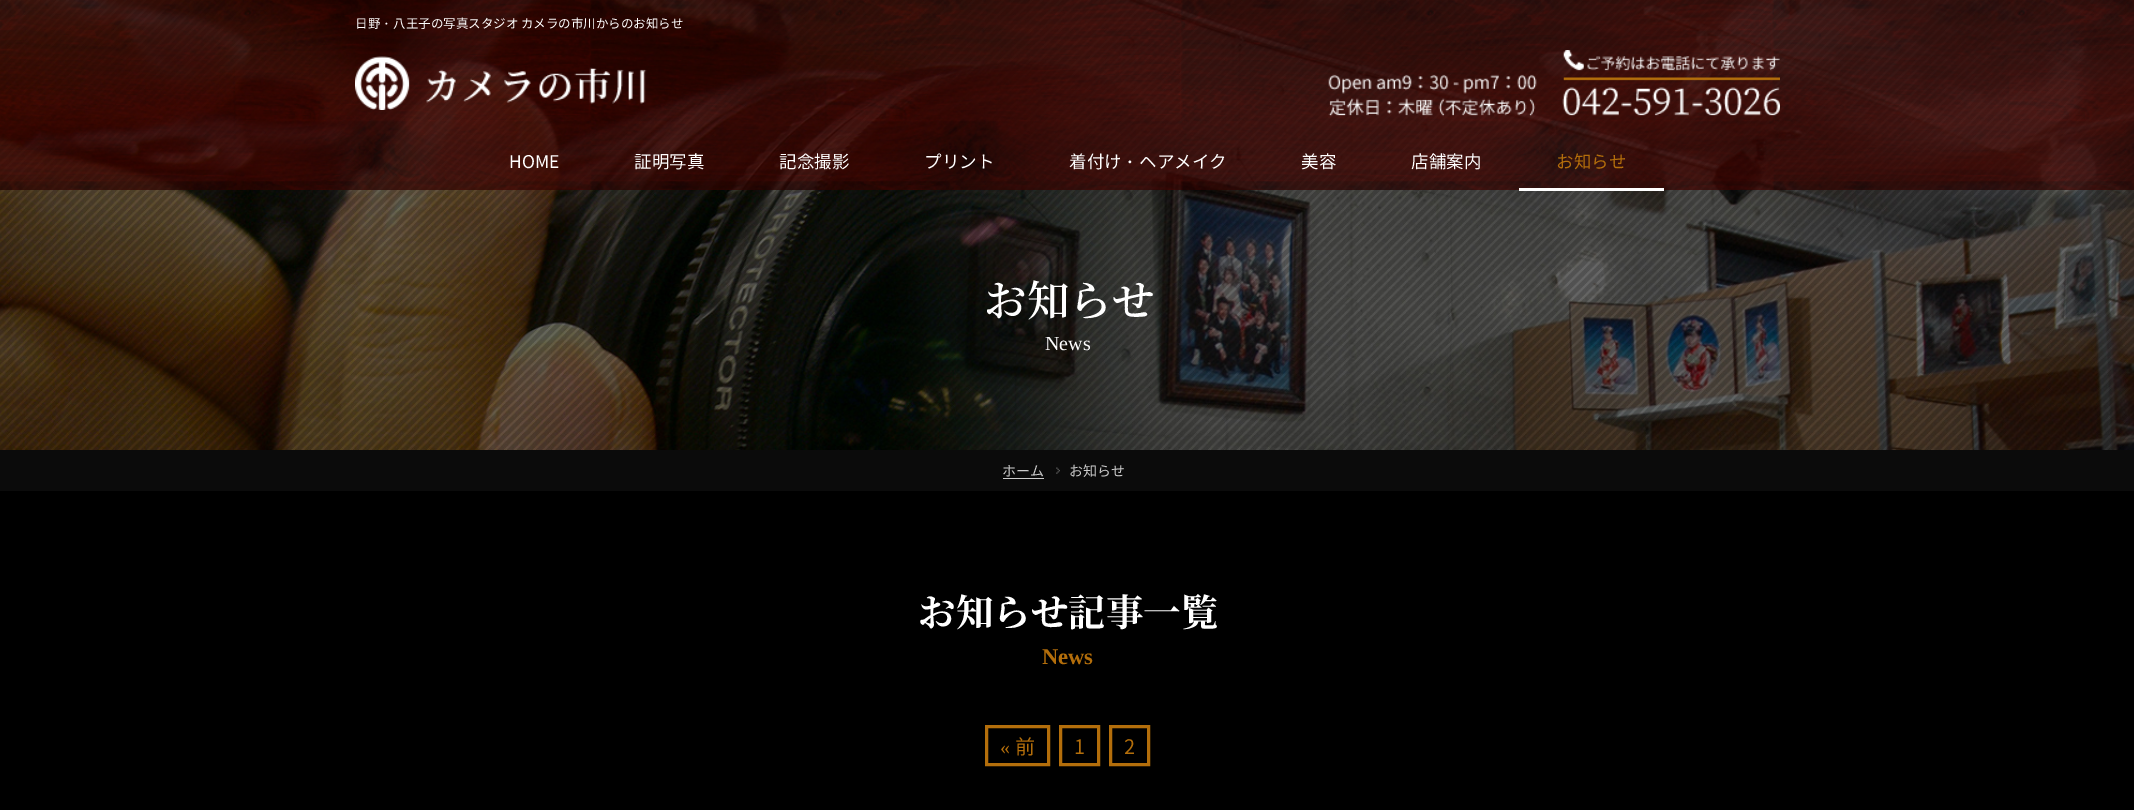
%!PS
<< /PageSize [2134 810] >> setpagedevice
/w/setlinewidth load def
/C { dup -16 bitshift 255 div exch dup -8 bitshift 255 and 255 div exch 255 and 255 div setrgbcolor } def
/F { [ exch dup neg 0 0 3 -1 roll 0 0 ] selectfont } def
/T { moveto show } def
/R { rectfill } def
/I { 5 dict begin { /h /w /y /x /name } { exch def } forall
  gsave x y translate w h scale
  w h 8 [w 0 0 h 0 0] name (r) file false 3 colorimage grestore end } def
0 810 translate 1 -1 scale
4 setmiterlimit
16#000000 C
0 0 2134 810 R
(4.rgb) 0 0 2134 450 I
(1.rgb) 0 0 2134 190 I
/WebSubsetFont-Regular 12.5 F
16#FFFFFF C
(日野) 355 28 T
/WenQuanYiZenHei-Medium 12.5 F
(・) 380 28 T
/WebSubsetFont-Regular 12.5 F
(八王子の写真スタジオ カメラの市川からのお知らせ) 393 28 T
(2.rgb) 355 56 292 54 I
(3.rgb) 1328 50 452 67 I
/WebSubsetFont-Regular 17.5 F
(HOME) 509 168 T
(証明写真) 634 168 T
(記念撮影) 779 168 T
(プリント) 924 168 T
(着付け) 1069 168 T
/WenQuanYiZenHei-Medium 17.5 F
(・) 1121 168 T
/WebSubsetFont-Regular 17.5 F
(ヘアメイク) 1139 168 T
(美容) 1301 168 T
(店舗案内) 1411 168 T
1519 188 145 3 R
16#B36E0B C
(お知らせ) 1556 168 T
/NotoSerifCJKJP-SemiBold 42.5 F
16#FFFFFF C
(お知らせ) 984 316 T
/LiberationSerif-Regular 20 F
(News) 1045 350 T
16#0B0B0B C
0 450 2134 41 R
/WebSubsetFont-Regular 14 F
16#CCCCCC C
(ホーム) 1002 476 T
1003 478 41 1 R
(5.rgb) 1056 467 4 7 I
(お知らせ) 1069 476 T
/NotoSerifJP-Bold 37.5 F
16#FFFFFF C
(お知らせ記事一覧) 918 626 T
/LiberationSerif-Bold 22.5 F
16#B36E0B C
(News) 1042 664 T
3 w
986.5 726.5 62 38 rectstroke
/LiberationSerif-Regular 20 F
(«) 1000 754 T
/WebSubsetFont-Regular 20 F
(前) 1015 754 T
1060.5 726.5 38 38 rectstroke
(1) 1074 754 T
1110.5 726.5 38 38 rectstroke
(2) 1124 754 T
showpage
